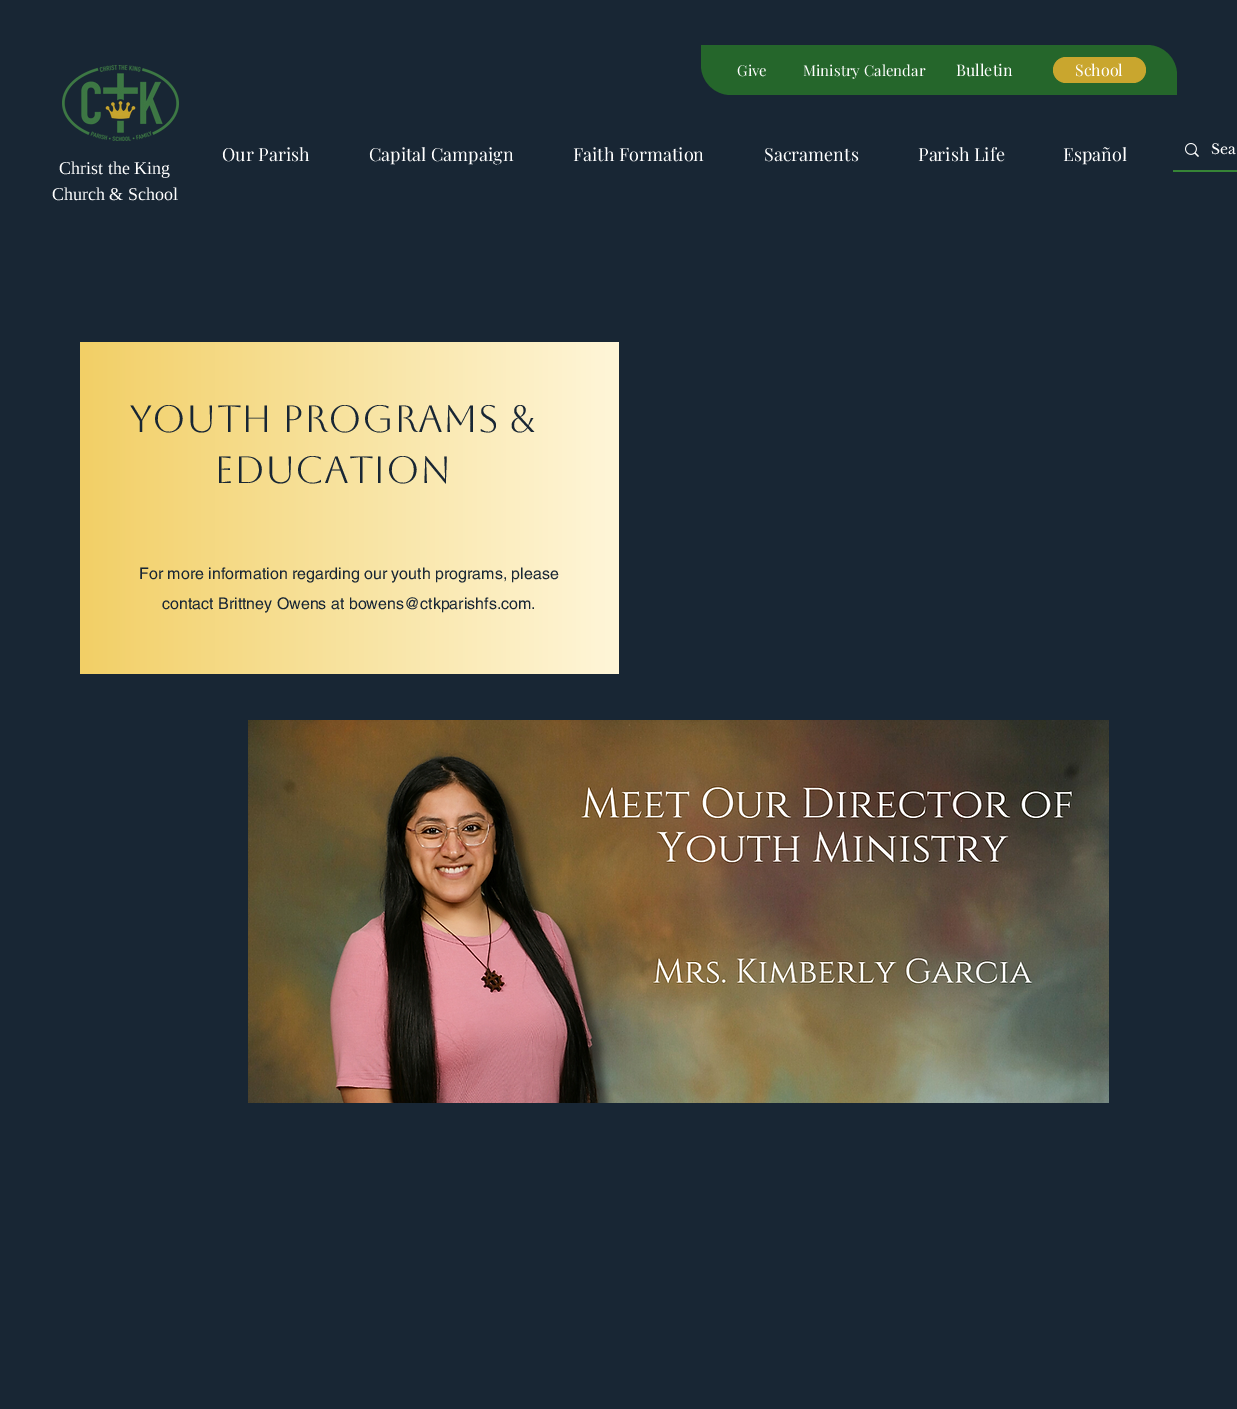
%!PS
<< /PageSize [1237 1409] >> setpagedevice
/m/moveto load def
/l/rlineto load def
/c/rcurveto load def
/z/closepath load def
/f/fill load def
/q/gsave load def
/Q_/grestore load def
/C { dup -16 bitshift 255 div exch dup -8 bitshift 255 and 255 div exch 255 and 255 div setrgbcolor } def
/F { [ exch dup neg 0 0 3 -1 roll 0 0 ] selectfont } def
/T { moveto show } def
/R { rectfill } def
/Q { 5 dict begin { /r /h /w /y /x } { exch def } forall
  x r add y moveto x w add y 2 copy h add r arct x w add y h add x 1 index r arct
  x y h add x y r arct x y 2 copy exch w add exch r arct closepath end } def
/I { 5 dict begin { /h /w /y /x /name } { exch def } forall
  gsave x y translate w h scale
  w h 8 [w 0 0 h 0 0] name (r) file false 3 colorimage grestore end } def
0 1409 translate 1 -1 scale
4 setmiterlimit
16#182634 C
0 0 1237 1409 R
16#25662B C
701 45 m 446 0 l 16.5 0 30 13.5 30 30 c 0 20 l -446 0 l -16.5 0 -30 -13.5 -30 -30 c z f
/PlayfairDisplay-Regular 15 F
16#FFFFFF C
(Give) 737 76 T
(Ministry Calendar) 803 76 T
/PlayfairDisplay-Regular 16 F
(Bulletin) 956 76 T
16#C9A62E C
1053 57 93 26 13 Q f
16#FFFFFF C
(School) 1075 76 T
/PlayfairDisplay-Regular 18 F
(Our Parish) 222 161 T
(Capital Campaign) 369 161 T
(Faith Formation) 573 161 T
(Sacraments) 764 161 T
(Parish Life) 918 161 T
(Español) 1063 161 T
16#368536 C
1173 170 64 2 R
(1.rgb) 1185 143 14 14 I
/LibreBaskerville-Regular 14 F
16#FFFFFF C
(Sea) 1211 154 T
(2.rgb) 62 65 117 76 I
/LiberationSerif-Regular 18 F
(Christ the King) 59 174 T
(Church & School) 52 200 T
q 80 342 m 539 0 l 0 332 l -539 0 l z clip newpath
<< /ShadingType 2 /ColorSpace /DeviceRGB /Coords [80 508 619 508] /Extend [true true] /Function << /FunctionType 2 /Domain [0 1] /C0 [.949 .812 .4] /C1 [1 .965 .851] /N 1 >> >> shfill Q_
/Aboreto-Regular 38 F
16#182634 C
(Youth Programs &) 129 432 T
(Education) 214 483 T
/helvetica-Regular 16 F
(For more information regarding our youth programs, please) 139 579 T
(contact Brittney Owens at bowens@ctkparishfs.com.) 162 609 T
(3.rgb) 248 720 861 383 I
showpage
